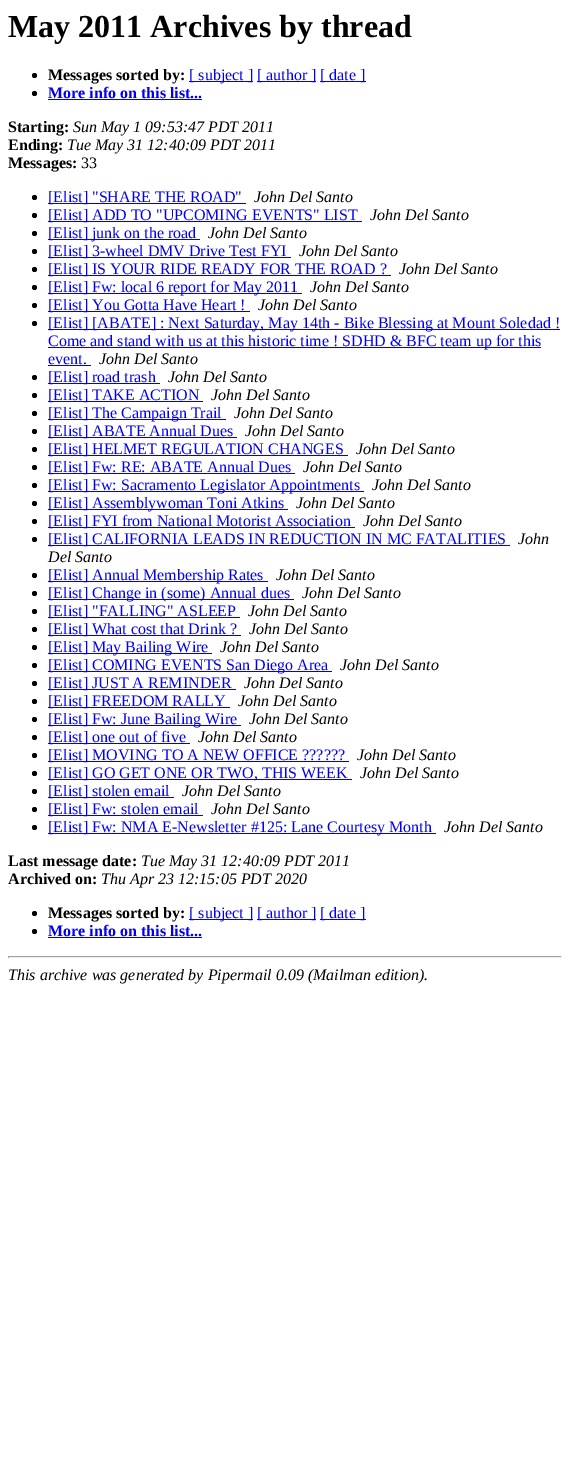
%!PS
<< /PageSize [570 1464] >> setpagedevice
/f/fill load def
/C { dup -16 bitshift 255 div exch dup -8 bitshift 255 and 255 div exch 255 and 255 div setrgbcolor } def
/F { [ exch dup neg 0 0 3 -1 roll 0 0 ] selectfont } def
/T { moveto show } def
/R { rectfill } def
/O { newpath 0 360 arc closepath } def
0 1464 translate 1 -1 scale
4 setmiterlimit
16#FFFFFF C
0 0 570 1464 R
/LiberationSerif-Bold 32 F
16#000000 C
(May 2011 Archives by thread) 8 37 T
34.5 75.5 2.5 O f
/LiberationSerif-Bold 16 F
(Messages sorted by:) 48 80 T
16#0000EE C
189 81 64 1 R
/LiberationSerif-Regular 16 F
([ subject ]) 189 80 T
257 81 59 1 R
([ author ]) 257 80 T
320 81 46 1 R
([ date ]) 320 80 T
16#000000 C
34.5 93.5 2.5 O f
/LiberationSerif-Bold 16 F
16#0000EE C
(More info on this list...) 48 98 T
48 99 154 1 R
16#000000 C
(Starting:) 8 132 T
/LiberationSerif-Italic 16 F
(Sun May 1 09:53:47 PDT 2011) 73 132 T
/LiberationSerif-Bold 16 F
(Ending:) 8 150 T
/LiberationSerif-Italic 16 F
(Tue May 31 12:40:09 PDT 2011) 67 150 T
/LiberationSerif-Bold 16 F
(Messages:) 8 168 T
/LiberationSerif-Regular 16 F
(33) 81 168 T
34.5 197.5 2.5 O f
16#0000EE C
48 203 198 1 R
([Elist] "SHARE THE ROAD") 48 202 T
/LiberationSerif-Italic 16 F
16#000000 C
(John Del Santo) 254 202 T
34.5 215.5 2.5 O f
16#0000EE C
48 221 314 1 R
/LiberationSerif-Regular 16 F
([Elist] ADD TO "UPCOMING EVENTS" LIST) 48 220 T
/LiberationSerif-Italic 16 F
16#000000 C
(John Del Santo) 370 220 T
34.5 233.5 2.5 O f
16#0000EE C
48 239 152 1 R
/LiberationSerif-Regular 16 F
([Elist] junk on the road) 48 238 T
/LiberationSerif-Italic 16 F
16#000000 C
(John Del Santo) 208 238 T
34.5 251.5 2.5 O f
16#0000EE C
48 257 243 1 R
/LiberationSerif-Regular 16 F
([Elist] 3-wheel DMV Drive Test FYI) 48 256 T
/LiberationSerif-Italic 16 F
16#000000 C
(John Del Santo) 299 256 T
34.5 269.5 2.5 O f
16#0000EE C
48 275 343 1 R
/LiberationSerif-Regular 16 F
([Elist] IS YOUR RIDE READY FOR THE ROAD ?) 48 274 T
/LiberationSerif-Italic 16 F
16#000000 C
(John Del Santo) 399 274 T
34.5 287.5 2.5 O f
16#0000EE C
48 293 254 1 R
/LiberationSerif-Regular 16 F
([Elist] Fw: local 6 report for May 2011) 48 292 T
/LiberationSerif-Italic 16 F
16#000000 C
(John Del Santo) 310 292 T
34.5 305.5 2.5 O f
16#0000EE C
48 311 202 1 R
/LiberationSerif-Regular 16 F
([Elist] You Gotta Have Heart !) 48 310 T
/LiberationSerif-Italic 16 F
16#000000 C
(John Del Santo) 258 310 T
34.5 323.5 2.5 O f
16#0000EE C
48 329 512 1 R
/LiberationSerif-Regular 16 F
([Elist] [ABATE] : Next Saturday, May 14th - Bike Blessing at Mount Soledad !) 48 328 T
48 347 493 1 R
(Come and stand with us at this historic time ! SDHD & BFC team up for this) 48 346 T
(event.) 48 364 T
48 365 43 1 R
/LiberationSerif-Italic 16 F
16#000000 C
(John Del Santo) 99 364 T
34.5 377.5 2.5 O f
16#0000EE C
48 383 112 1 R
/LiberationSerif-Regular 16 F
([Elist] road trash) 48 382 T
/LiberationSerif-Italic 16 F
16#000000 C
(John Del Santo) 168 382 T
34.5 395.5 2.5 O f
16#0000EE C
48 401 155 1 R
/LiberationSerif-Regular 16 F
([Elist] TAKE ACTION) 48 400 T
/LiberationSerif-Italic 16 F
16#000000 C
(John Del Santo) 211 400 T
34.5 413.5 2.5 O f
16#0000EE C
48 419 178 1 R
/LiberationSerif-Regular 16 F
([Elist] The Campaign Trail) 48 418 T
/LiberationSerif-Italic 16 F
16#000000 C
(John Del Santo) 234 418 T
34.5 431.5 2.5 O f
16#0000EE C
48 437 189 1 R
/LiberationSerif-Regular 16 F
([Elist] ABATE Annual Dues) 48 436 T
/LiberationSerif-Italic 16 F
16#000000 C
(John Del Santo) 245 436 T
34.5 449.5 2.5 O f
16#0000EE C
48 455 300 1 R
/LiberationSerif-Regular 16 F
([Elist] HELMET REGULATION CHANGES) 48 454 T
/LiberationSerif-Italic 16 F
16#000000 C
(John Del Santo) 356 454 T
34.5 467.5 2.5 O f
16#0000EE C
48 473 247 1 R
/LiberationSerif-Regular 16 F
([Elist] Fw: RE: ABATE Annual Dues) 48 472 T
/LiberationSerif-Italic 16 F
16#000000 C
(John Del Santo) 303 472 T
34.5 485.5 2.5 O f
16#0000EE C
48 491 316 1 R
/LiberationSerif-Regular 16 F
([Elist] Fw: Sacramento Legislator Appointments) 48 490 T
/LiberationSerif-Italic 16 F
16#000000 C
(John Del Santo) 372 490 T
34.5 503.5 2.5 O f
16#0000EE C
48 509 240 1 R
/LiberationSerif-Regular 16 F
([Elist] Assemblywoman Toni Atkins) 48 508 T
/LiberationSerif-Italic 16 F
16#000000 C
(John Del Santo) 296 508 T
34.5 521.5 2.5 O f
16#0000EE C
48 527 307 1 R
/LiberationSerif-Regular 16 F
([Elist] FYI from National Motorist Association) 48 526 T
/LiberationSerif-Italic 16 F
16#000000 C
(John Del Santo) 363 526 T
34.5 539.5 2.5 O f
16#0000EE C
48 545 462 1 R
/LiberationSerif-Regular 16 F
([Elist] CALIFORNIA LEADS IN REDUCTION IN MC FATALITIES) 48 544 T
/LiberationSerif-Italic 16 F
16#000000 C
(John) 518 544 T
(Del Santo) 48 562 T
34.5 575.5 2.5 O f
16#0000EE C
48 581 220 1 R
/LiberationSerif-Regular 16 F
([Elist] Annual Membership Rates) 48 580 T
/LiberationSerif-Italic 16 F
16#000000 C
(John Del Santo) 276 580 T
34.5 593.5 2.5 O f
16#0000EE C
48 599 246 1 R
/LiberationSerif-Regular 16 F
([Elist] Change in \(some\) Annual dues) 48 598 T
/LiberationSerif-Italic 16 F
16#000000 C
(John Del Santo) 302 598 T
34.5 611.5 2.5 O f
16#0000EE C
48 617 192 1 R
/LiberationSerif-Regular 16 F
([Elist] "FALLING" ASLEEP) 48 616 T
/LiberationSerif-Italic 16 F
16#000000 C
(John Del Santo) 248 616 T
34.5 629.5 2.5 O f
16#0000EE C
48 635 193 1 R
/LiberationSerif-Regular 16 F
([Elist] What cost that Drink ?) 48 634 T
/LiberationSerif-Italic 16 F
16#000000 C
(John Del Santo) 249 634 T
34.5 647.5 2.5 O f
16#0000EE C
48 653 164 1 R
/LiberationSerif-Regular 16 F
([Elist] May Bailing Wire) 48 652 T
/LiberationSerif-Italic 16 F
16#000000 C
(John Del Santo) 220 652 T
34.5 665.5 2.5 O f
16#0000EE C
48 671 284 1 R
/LiberationSerif-Regular 16 F
([Elist] COMING EVENTS San Diego Area) 48 670 T
/LiberationSerif-Italic 16 F
16#000000 C
(John Del Santo) 340 670 T
34.5 683.5 2.5 O f
16#0000EE C
48 689 188 1 R
/LiberationSerif-Regular 16 F
([Elist] JUST A REMINDER) 48 688 T
/LiberationSerif-Italic 16 F
16#000000 C
(John Del Santo) 244 688 T
34.5 701.5 2.5 O f
16#0000EE C
48 707 182 1 R
/LiberationSerif-Regular 16 F
([Elist] FREEDOM RALLY) 48 706 T
/LiberationSerif-Italic 16 F
16#000000 C
(John Del Santo) 238 706 T
34.5 719.5 2.5 O f
16#0000EE C
48 725 193 1 R
/LiberationSerif-Regular 16 F
([Elist] Fw: June Bailing Wire) 48 724 T
/LiberationSerif-Italic 16 F
16#000000 C
(John Del Santo) 249 724 T
34.5 737.5 2.5 O f
16#0000EE C
48 743 142 1 R
/LiberationSerif-Regular 16 F
([Elist] one out of five) 48 742 T
/LiberationSerif-Italic 16 F
16#000000 C
(John Del Santo) 198 742 T
34.5 755.5 2.5 O f
16#0000EE C
48 761 301 1 R
/LiberationSerif-Regular 16 F
([Elist] MOVING TO A NEW OFFICE ??????) 48 760 T
/LiberationSerif-Italic 16 F
16#000000 C
(John Del Santo) 357 760 T
34.5 773.5 2.5 O f
16#0000EE C
48 779 304 1 R
/LiberationSerif-Regular 16 F
([Elist] GO GET ONE OR TWO, THIS WEEK) 48 778 T
/LiberationSerif-Italic 16 F
16#000000 C
(John Del Santo) 360 778 T
34.5 791.5 2.5 O f
16#0000EE C
48 797 126 1 R
/LiberationSerif-Regular 16 F
([Elist] stolen email) 48 796 T
/LiberationSerif-Italic 16 F
16#000000 C
(John Del Santo) 182 796 T
34.5 809.5 2.5 O f
16#0000EE C
48 815 155 1 R
/LiberationSerif-Regular 16 F
([Elist] Fw: stolen email) 48 814 T
/LiberationSerif-Italic 16 F
16#000000 C
(John Del Santo) 211 814 T
34.5 827.5 2.5 O f
16#0000EE C
48 833 388 1 R
/LiberationSerif-Regular 16 F
([Elist] Fw: NMA E-Newsletter #125: Lane Courtesy Month) 48 832 T
/LiberationSerif-Italic 16 F
16#000000 C
(John Del Santo) 444 832 T
/LiberationSerif-Bold 16 F
(Last message date:) 8 866 T
/LiberationSerif-Italic 16 F
(Tue May 31 12:40:09 PDT 2011) 141 866 T
/LiberationSerif-Bold 16 F
(Archived on:) 8 884 T
/LiberationSerif-Italic 16 F
(Thu Apr 23 12:15:05 PDT 2020) 101 884 T
34.5 913.5 2.5 O f
/LiberationSerif-Bold 16 F
(Messages sorted by:) 48 918 T
16#0000EE C
189 919 64 1 R
/LiberationSerif-Regular 16 F
([ subject ]) 189 918 T
257 919 59 1 R
([ author ]) 257 918 T
320 919 46 1 R
([ date ]) 320 918 T
16#000000 C
34.5 931.5 2.5 O f
/LiberationSerif-Bold 16 F
16#0000EE C
(More info on this list...) 48 936 T
48 937 154 1 R
16#9F9F9F C
8 956 554 1 R
16#EEEEEE C
561 956 1 2 R
8 957 554 1 R
16#9F9F9F C
8 956 1 2 R
/LiberationSerif-Italic 16 F
16#000000 C
(This archive was generated by Pipermail 0.09 \(Mailman edition\).) 8 980 T
showpage
